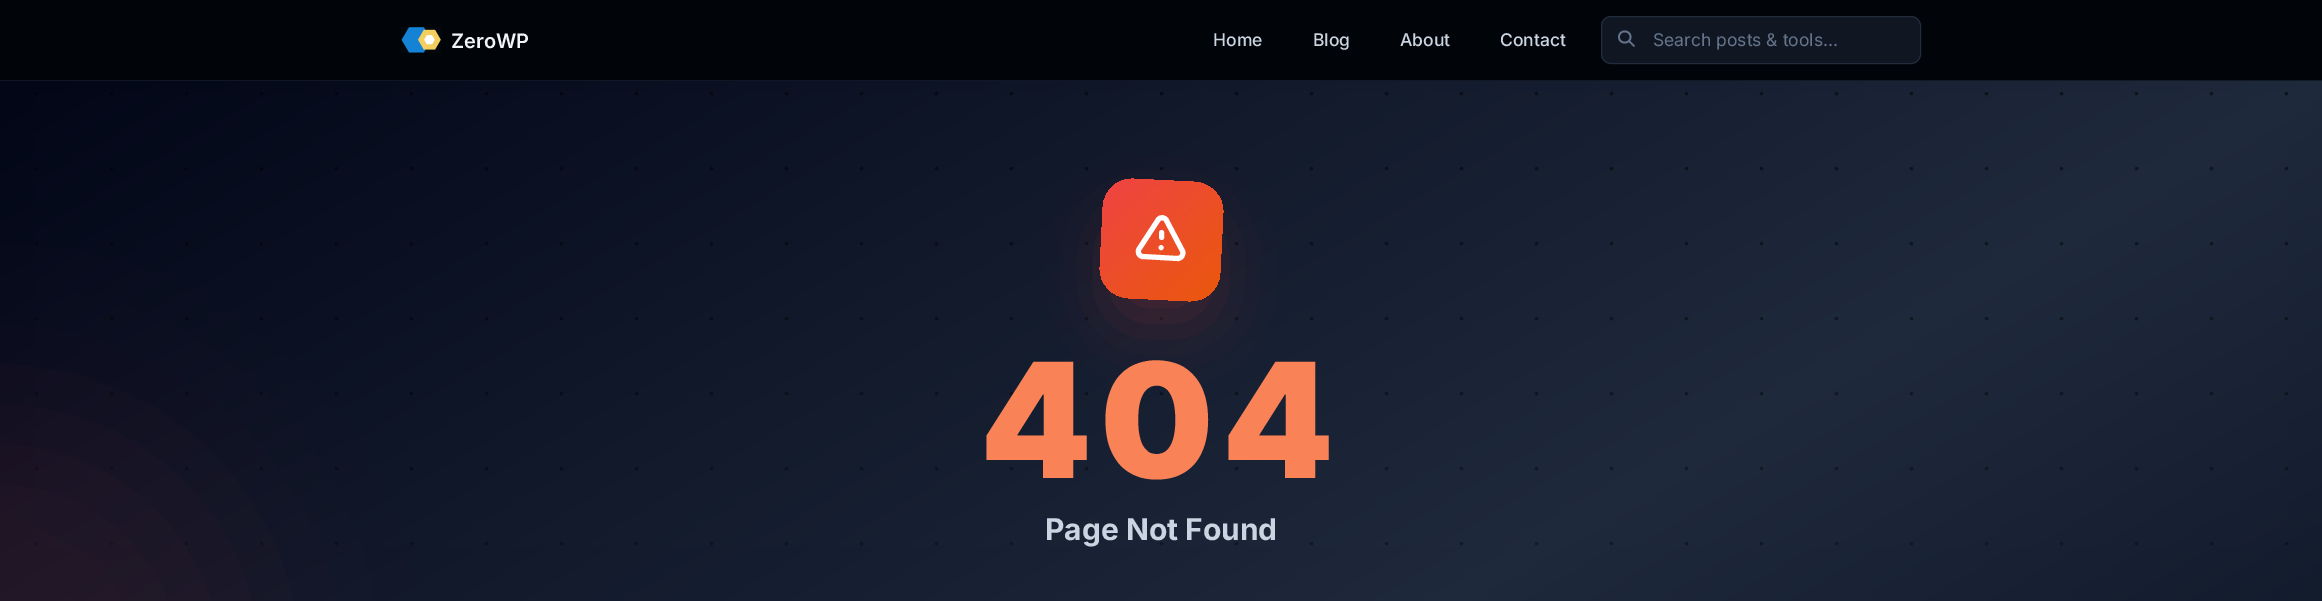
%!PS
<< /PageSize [2322 601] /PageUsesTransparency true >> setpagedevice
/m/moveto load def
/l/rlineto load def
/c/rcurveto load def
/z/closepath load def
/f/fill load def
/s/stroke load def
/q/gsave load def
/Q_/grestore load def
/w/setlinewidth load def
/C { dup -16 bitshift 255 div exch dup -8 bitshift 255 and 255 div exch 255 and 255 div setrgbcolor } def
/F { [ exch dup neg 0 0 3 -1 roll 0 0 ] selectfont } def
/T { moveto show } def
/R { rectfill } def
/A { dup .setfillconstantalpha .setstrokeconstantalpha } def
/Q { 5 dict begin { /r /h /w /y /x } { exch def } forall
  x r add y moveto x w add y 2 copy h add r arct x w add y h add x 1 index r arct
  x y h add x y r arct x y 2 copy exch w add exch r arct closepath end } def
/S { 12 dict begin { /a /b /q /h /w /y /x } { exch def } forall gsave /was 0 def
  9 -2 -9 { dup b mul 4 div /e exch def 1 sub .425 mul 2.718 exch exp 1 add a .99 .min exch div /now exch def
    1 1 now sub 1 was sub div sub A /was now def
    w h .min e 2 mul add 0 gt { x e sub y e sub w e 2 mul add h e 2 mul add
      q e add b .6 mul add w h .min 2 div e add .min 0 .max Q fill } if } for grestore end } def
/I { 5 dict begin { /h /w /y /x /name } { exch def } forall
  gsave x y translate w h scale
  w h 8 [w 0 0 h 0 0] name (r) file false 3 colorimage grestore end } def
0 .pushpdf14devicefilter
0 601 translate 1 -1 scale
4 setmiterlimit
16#010409 C
0 0 2322 601 R
(1.rgb) 401 27 40 26 I
/Inter-SemiBold 20 F
16#F1F5F9 C
(ZeroWP) 451 48 T
/Inter-Medium 17.5 F
16#CBD5E1 C
(Home) 1213 46 T
(Blog) 1313 46 T
(About) 1400 46 T
(Contact) 1500 46 T
16#101722 C
1601 16 320 48 10 Q f
0.5 A
16#334155 C
1601.5 16.5 319 47 9.5 Q s
1 A
16#64748B C
1.7 w
1 setlinecap
1 setlinejoin
1634 46 m -5 -5 l 1630.5 37 m 0 7.5 -11.5 7.5 -11.5 0 c 0 -7.5 11.5 -7.5 11.5 0 c z s
/Inter-Regular 17.5 F
(Search posts & tools...) 1653 46 T
q 0 81 m 2322 0 l 0 520 l -2322 0 l z clip newpath
<< /ShadingType 2 /ColorSpace /DeviceRGB /Coords [557 -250 1766 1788] /Extend [true true] /Function << /FunctionType 3 /Domain [0 1] /Functions [<< /FunctionType 2 /Domain [0 1] /C0 [.008 .024 .09] /C1 [.118 .161 .231] /N 1 >> << /FunctionType 2 /Domain [0 1] /C0 [.118 .161 .231] /C1 [.008 .024 .09] /N 1 >>] /Bounds [.5] /Encode [0 1 0 1] >> >> shfill Q_
q 0 80 m 2322 0 l 0 1 l -2322 0 l z clip newpath
<< /ShadingType 2 /ColorSpace /DeviceRGB /Coords [557 -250 1766 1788] /Extend [true true] /Function << /FunctionType 3 /Domain [0 1] /Functions [<< /FunctionType 2 /Domain [0 1] /C0 [.063 .09 .141] /C1 [.075 .102 .153] /N 1 >> << /FunctionType 2 /Domain [0 1] /C0 [.075 .102 .153] /C1 [.063 .09 .141] /N 1 >>] /Bounds [.5] /Encode [0 1 0 1] >> >> shfill Q_
(2.rgb) 34 91 2255 455 I
16#EF4444 C
-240 425 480 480 240 80 .1 S
1116 226 90 90 15 31.5 .25 S
q 1134 179 m 60 3 l 17 1 30 15 29 31 c -3 60 l -1 17 -15 29 -32 28 c -60 -3 l -16 -1 -29 -15 -28 -31 c 3 -60 l 1 -17 15 -29 31 -28 c z clip newpath
<< /ShadingType 2 /ColorSpace /DeviceRGB /Coords [1104 177 1218 303] /Extend [true true] /Function << /FunctionType 2 /Domain [0 1] /C0 [.937 .267 .267] /C1 [.918 .345 .047] /N 1 >> >> shfill Q_
16#FFFFFF C
5 w
1161.5 232.5 m 0 5 l 1161 247.5 m 0 0 l 1143 256.5 m 34.5 2 l 4 0 6.5 -4 5 -7.5 c -16 -30.5 l -1.5 -3.5 -6.5 -4 -8.5 -.5 c -19 29 l -2 3 0 7.5 4 7.5 c z s
/Inter-Black 160 F
16#FA8257 C
980 478 m 8 0 (404) ashow
/Inter-Bold 30 F
16#CBD5E1 C
(Page Not Found) 1045 540 T
.poppdf14devicefilter showpage
